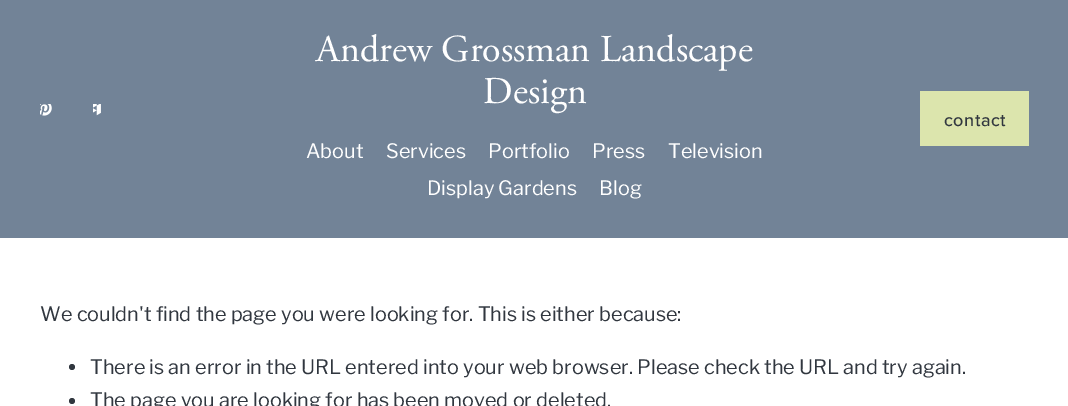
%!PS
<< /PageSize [1068 406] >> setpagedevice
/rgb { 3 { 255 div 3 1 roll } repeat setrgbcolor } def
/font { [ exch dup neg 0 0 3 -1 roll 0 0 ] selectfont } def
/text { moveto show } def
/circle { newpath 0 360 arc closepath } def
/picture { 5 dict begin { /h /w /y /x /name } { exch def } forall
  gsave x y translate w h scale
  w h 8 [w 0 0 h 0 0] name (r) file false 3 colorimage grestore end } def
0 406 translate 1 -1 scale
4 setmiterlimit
255 255 255 rgb
0 0 1068 406 rectfill
114 131 151 rgb
0 0 1068 238 rectfill
(img_01.rgb) 40 104 12 12 picture
(img_02.rgb) 93 104 8 12 picture
220 229 173 rgb
920 91 109 55 rectfill
49 55 63 rgb
72 367 3 circle fill
72 401 3 circle fill
/AdobeGaramond-Regular 38 font
255 255 255 rgb
(Andrew Grossman Landscape) 316 61 text
(Design) 483 103 text
/LibreFranklin-Regular 19.85 font
(About) 306 158 text
(Services) 386 158 text
(Portfolio) 488 158 text
(Press) 592 158 text
(Television) 668 158 text
(Display Gardens) 427 195 text
(Blog) 599 195 text
/ProximaNova-Medium 18 font
49 55 63 rgb
944 126 moveto 0.5 0 (contact) ashow
/LibreFranklin-Regular 19.85 font
(We couldn't find the page you were looking for. This is either because:) 40 321 text
(There is an error in the URL entered into your web browser. Please check the URL and try again.) 90 374 text
(The page you are looking for has been moved or deleted.) 90 407 text
showpage
